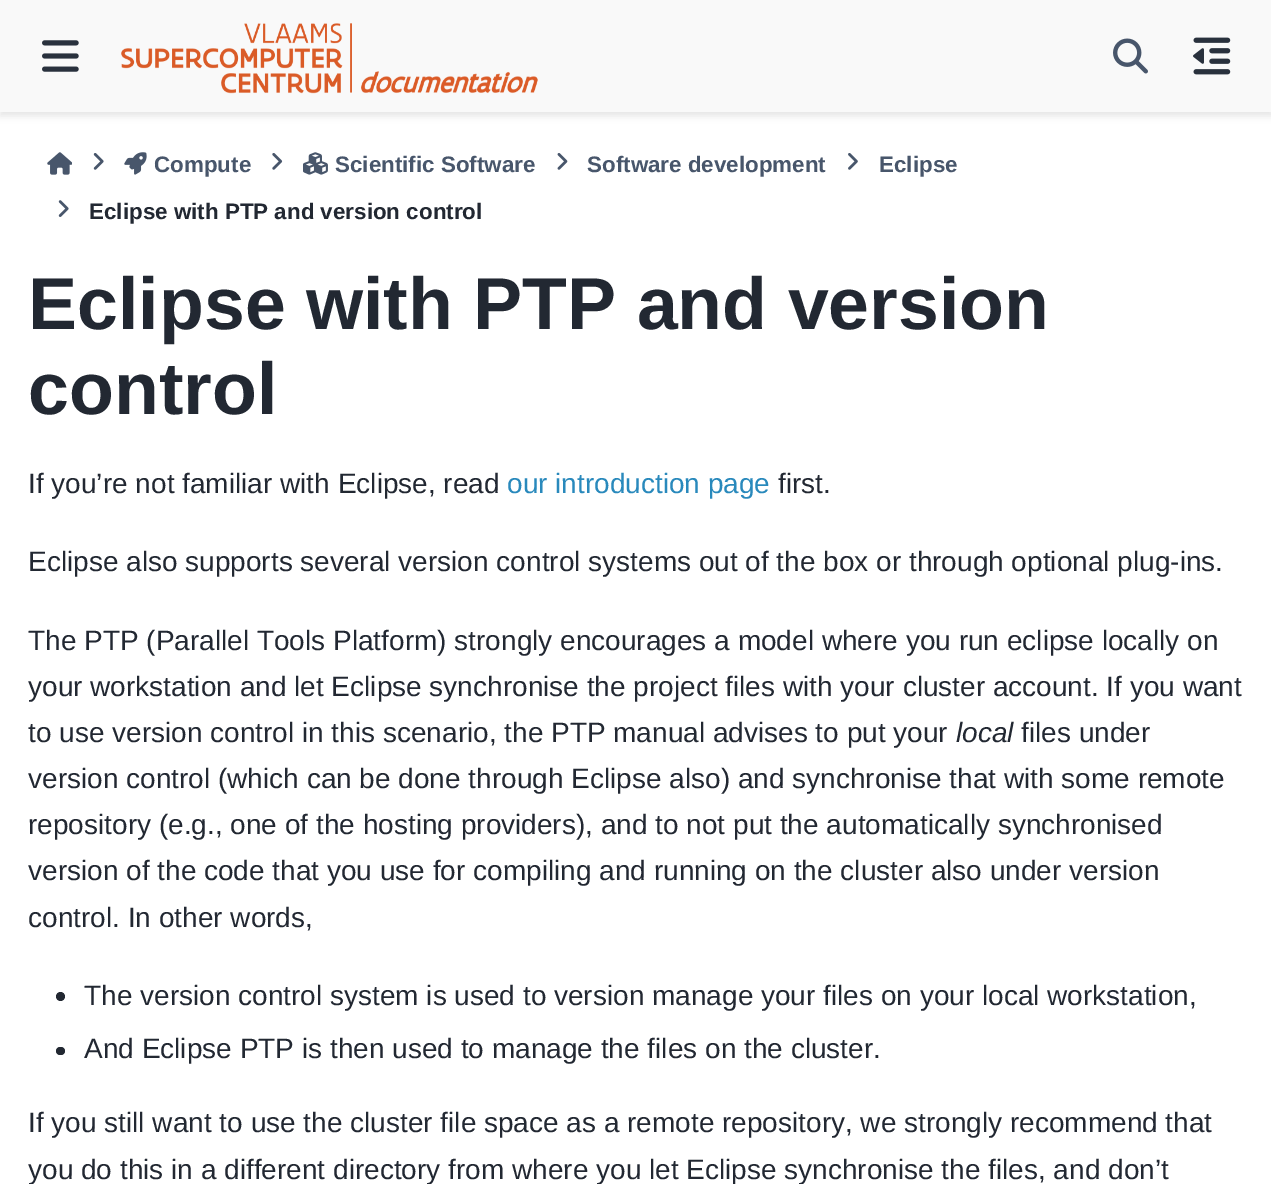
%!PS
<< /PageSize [1271 1184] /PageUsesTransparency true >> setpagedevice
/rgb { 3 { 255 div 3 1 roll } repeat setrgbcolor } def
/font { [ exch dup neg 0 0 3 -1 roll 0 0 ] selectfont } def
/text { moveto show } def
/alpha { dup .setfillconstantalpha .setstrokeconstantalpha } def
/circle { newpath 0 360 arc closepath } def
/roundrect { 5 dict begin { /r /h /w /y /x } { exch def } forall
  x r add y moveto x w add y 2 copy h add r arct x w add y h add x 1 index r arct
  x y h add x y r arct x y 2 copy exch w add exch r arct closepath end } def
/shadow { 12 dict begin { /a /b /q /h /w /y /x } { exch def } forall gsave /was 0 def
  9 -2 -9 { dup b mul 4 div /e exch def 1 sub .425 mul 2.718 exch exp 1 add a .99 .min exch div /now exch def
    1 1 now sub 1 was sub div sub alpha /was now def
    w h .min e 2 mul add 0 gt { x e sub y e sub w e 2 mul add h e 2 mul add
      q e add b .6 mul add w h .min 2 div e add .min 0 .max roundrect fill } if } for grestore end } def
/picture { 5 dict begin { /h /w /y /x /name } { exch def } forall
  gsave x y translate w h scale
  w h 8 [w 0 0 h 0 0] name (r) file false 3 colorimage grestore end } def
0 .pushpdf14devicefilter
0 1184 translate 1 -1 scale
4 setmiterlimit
255 255 255 rgb
0 0 1271 1184 rectfill
0 0 0 rgb
0 4 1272 112 0 3.5 0.1 shadow
249 249 249 rgb
0 0 1271 112 rectfill
(img_01.rgb) 42 40 37 32 picture
(img_02.rgb) 121 23 417 71 picture
(img_03.rgb) 1113 38 35 36 picture
(img_04.rgb) 1193 37 38 38 picture
(img_05.rgb) 47 152 25 23 picture
(img_06.rgb) 93 153 11 17 picture
(img_07.rgb) 124 152 23 23 picture
(img_08.rgb) 272 153 11 17 picture
(img_09.rgb) 303 152 25 23 picture
(img_10.rgb) 557 153 11 17 picture
(img_11.rgb) 848 153 10 17 picture
(img_12.rgb) 58 200 11 17 picture
34 40 50 rgb
60.5 996.5 4.5 circle fill
56 1047 9 8 4 roundrect fill
/LiberationSans-Bold 22.4 font
72 86 107 rgb
(Compute) 154 172 text
(Scientific Software) 335 172 text
(Software development) 587 172 text
(Eclipse) 879 172 text
34 40 50 rgb
(Eclipse with PTP and version control) 89 219 text
/LiberationSans-Bold 73.5 font
(Eclipse with PTP and version) 28 329 text
(control) 28 414 text
/LiberationSans-Regular 28 font
(If you’re not familiar with Eclipse, read) 28 493 text
41 137 188 rgb
(our introduction page) 507 493 text
34 40 50 rgb
(first.) 778 493 text
(Eclipse also supports several version control systems out of the box or through optional plug-ins.) 28 571 text
(The PTP \(Parallel Tools Platform\) strongly encourages a model where you run eclipse locally on) 28 650 text
(your workstation and let Eclipse synchronise the project files with your cluster account. If you want) 28 696 text
(to use version control in this scenario, the PTP manual advises to put your) 28 742 text
/LiberationSans-Italic 28 font
(local) 956 742 text
/LiberationSans-Regular 28 font
(files under) 1021 742 text
(version control \(which can be done through Eclipse also\) and synchronise that with some remote) 28 788 text
(repository \(e.g., one of the hosting providers\), and to not put the automatically synchronised) 28 834 text
(version of the code that you use for compiling and running on the cluster also under version) 28 880 text
(control. In other words,) 28 927 text
(The version control system is used to version manage your files on your local workstation,) 84 1005 text
(And Eclipse PTP is then used to manage the files on the cluster.) 84 1058 text
(If you still want to use the cluster file space as a remote repository, we strongly recommend that) 28 1132 text
(you do this in a different directory from where you let Eclipse synchronise the files, and don’t) 28 1179 text
.poppdf14devicefilter showpage
